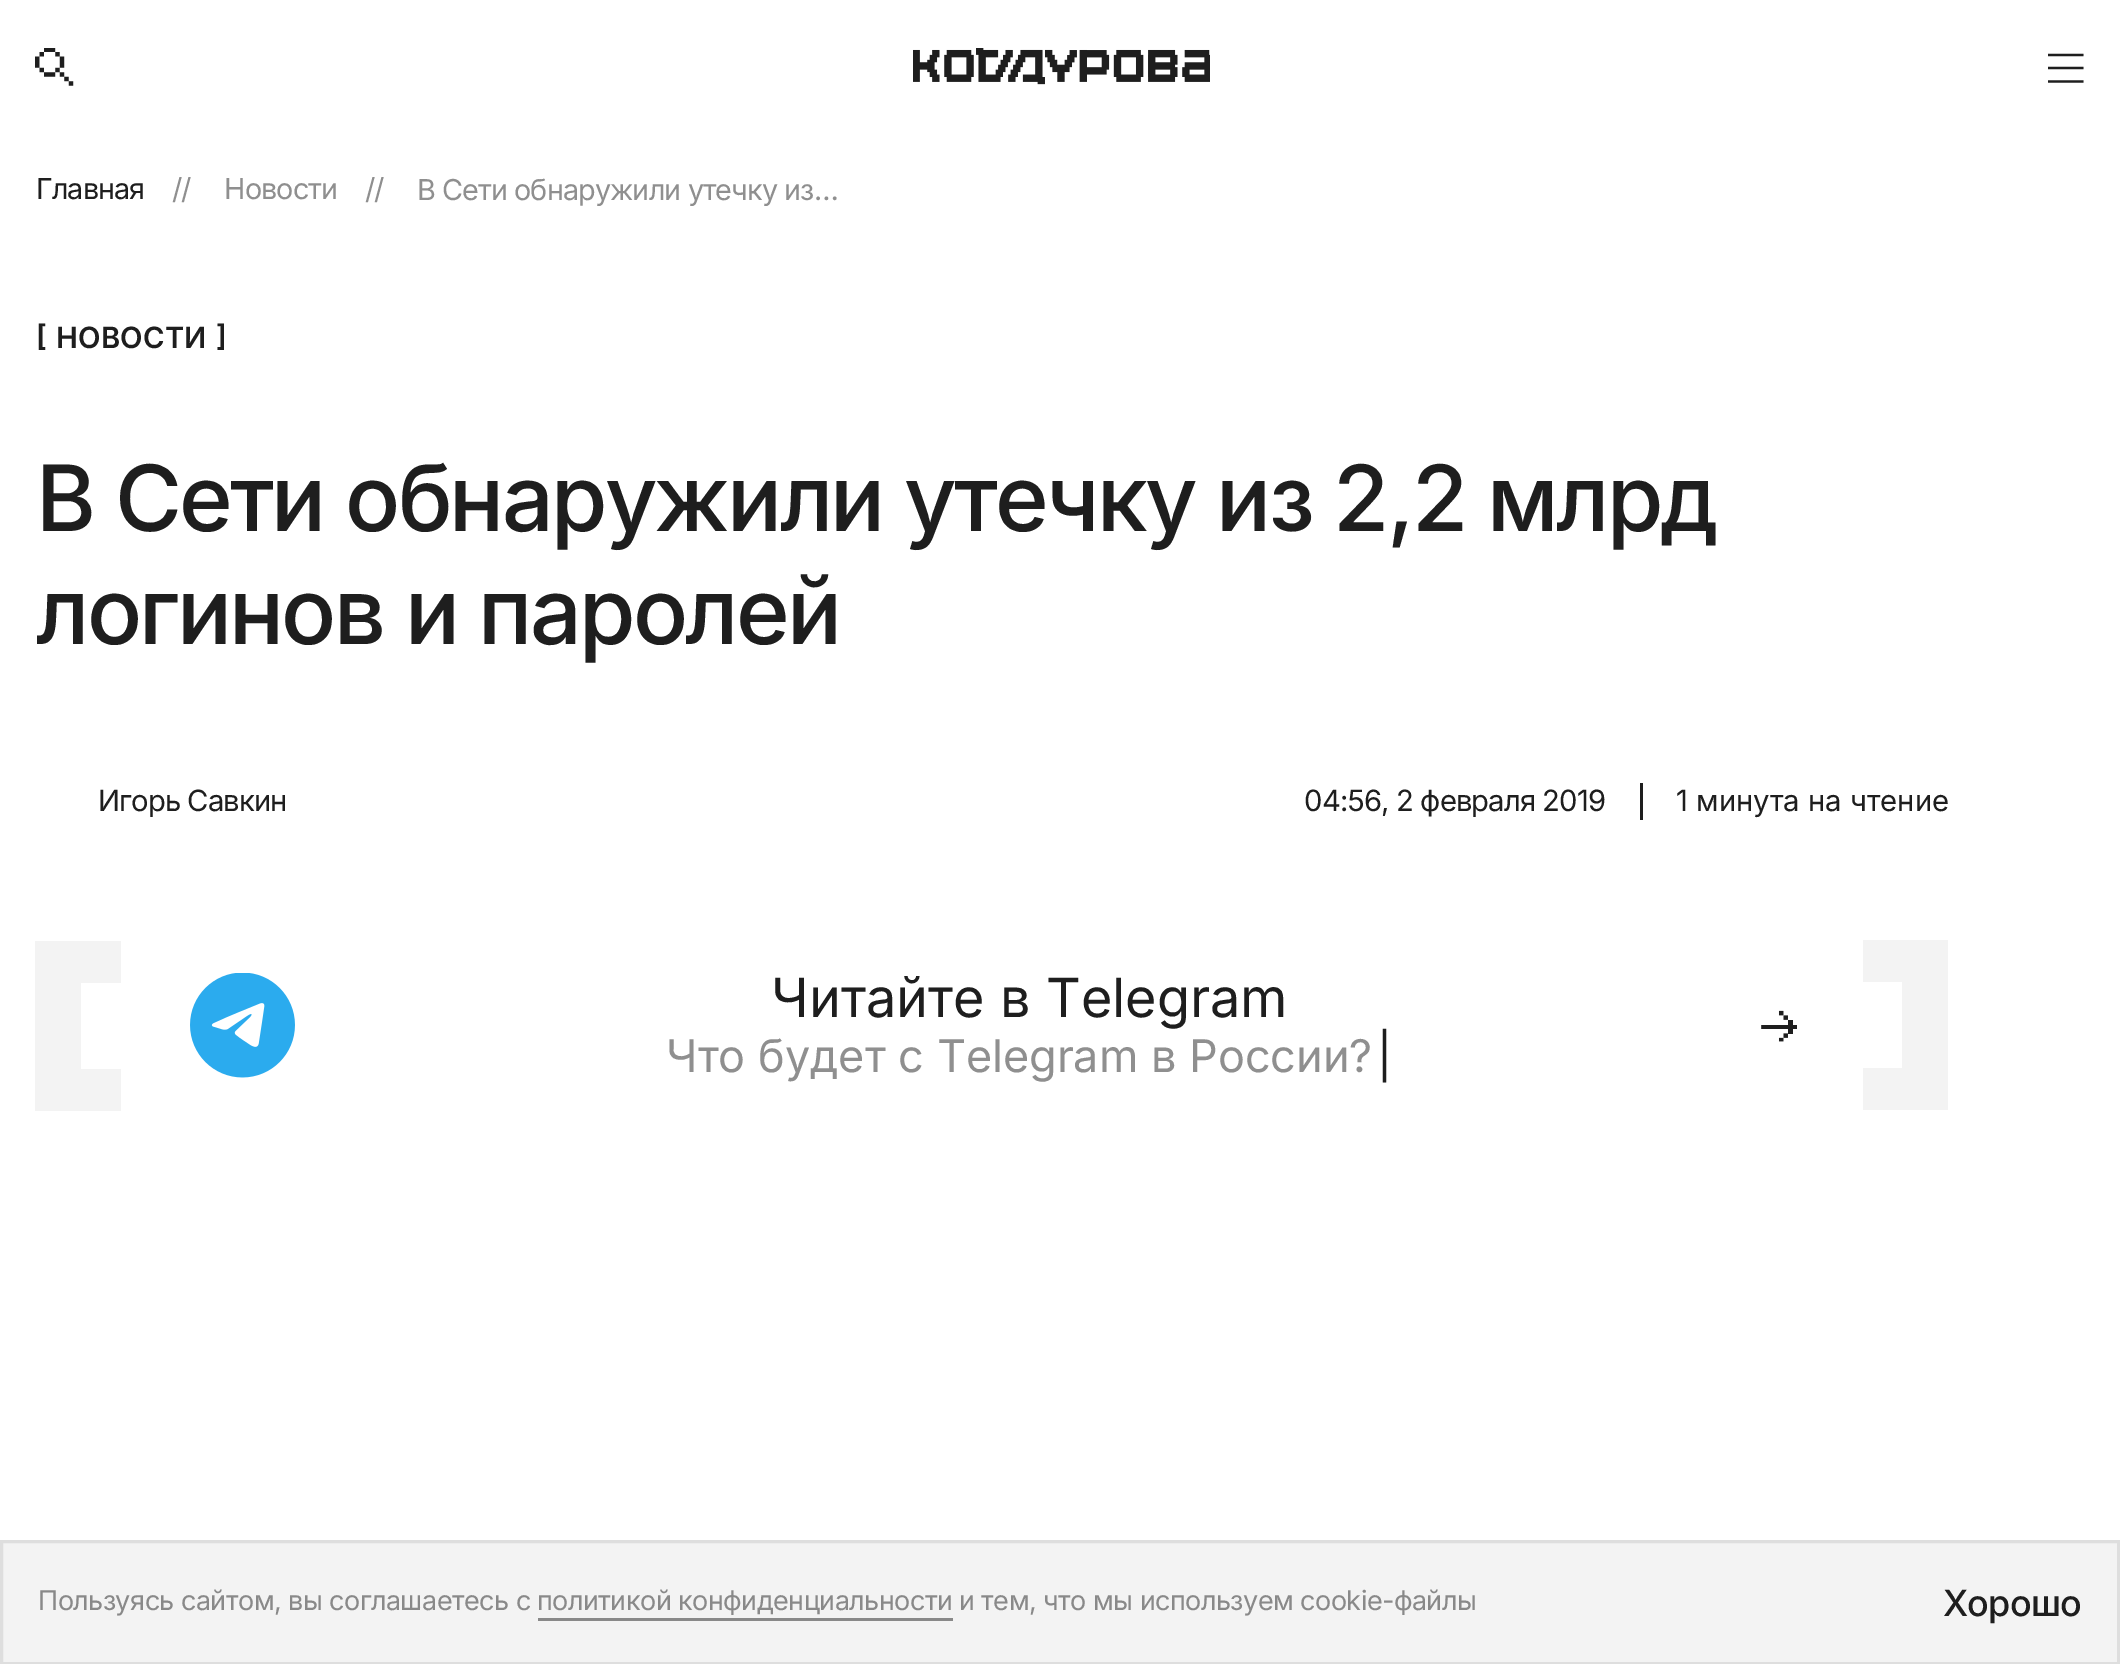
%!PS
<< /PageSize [2120 1664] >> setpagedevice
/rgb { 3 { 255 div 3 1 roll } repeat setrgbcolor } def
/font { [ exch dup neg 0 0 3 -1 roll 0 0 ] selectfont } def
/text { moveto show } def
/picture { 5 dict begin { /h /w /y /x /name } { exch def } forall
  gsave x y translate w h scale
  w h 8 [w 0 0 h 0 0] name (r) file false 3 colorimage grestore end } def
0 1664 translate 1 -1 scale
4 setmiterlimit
255 255 255 rgb
0 0 2120 1664 rectfill
(img_01.rgb) 35 48 39 38 picture
(img_02.rgb) 913 48 297 37 picture
gsave
2048 53 37 30 rectclip
30 30 30 rgb
2.2 setlinewidth
2047.5 55 moveto 36 0 rlineto 2047.5 68 moveto 36 0 rlineto 2047.5 81.5 moveto 36 0 rlineto stroke
grestore
30 30 30 rgb
1640 783 3 37 rectfill
243 243 243 rgb
121 961 moveto 0 22 rlineto -40 0 rlineto 0 86 rlineto 40 0 rlineto 0 42 rlineto -86 0 rlineto 0 -170 rlineto 86 0 rlineto 0 20 rlineto fill
(img_03.rgb) 190 973 105 105 picture
(img_04.rgb) 1761 1010 36 32 picture
gsave
1863 925 85 203 rectclip
1862 1090 moveto 0 -22 rlineto 40 0 rlineto 0 -86 rlineto -40 0 rlineto 0 -42 rlineto 86 0 rlineto 0 170 rlineto -86 0 rlineto 0 -20 rlineto fill
grestore
1.5 1541.5 moveto 2117 0 rlineto 0 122 rlineto -2117 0 rlineto closepath gsave fill grestore
222 222 222 rgb
3 setlinewidth
stroke
137 137 137 rgb
538 1618 415 3 rectfill
/Inter-Regular 28.8 font
30 30 30 rgb
36 199 moveto -0.9 0 (Главная) ashow
143 143 143 rgb
172 199 moveto -0.9 0 (//) ashow
224 199 moveto -0.9 0 (Новости) ashow
365 199 moveto -0.9 0 (//) ashow
417 200 moveto -0.9 0 (В Сети обнаружили утечку из…) ashow
/Inter-SemiBold 29.25 font
30 30 30 rgb
36 346 moveto 0.25 0 ([) ashow
56 348 moveto 0.25 0 (НОВОСТИ) ashow
216 346 moveto 0.25 0 (]) ashow
/Inter-Medium 91.4 font
36 531 moveto -2.75 0 (В Сети обнаружили утечку из 2,2 млрд) ashow
36 644 moveto -2.75 0 (логинов и паролей) ashow
/Inter-Regular 29.25 font
98 811 moveto -0.9 0 (Игорь Савкин) ashow
1304 811 moveto -0.9 0 (04:56, 2 февраля 2019) ashow
(1 минута на чтение) 1676 811 text
/Inter-Regular 54 font
(Читайте в Telegram) 771 1017 text
/Inter-Regular 45 font
143 143 143 rgb
(Что будет с Telegram в России?) 666 1072 text
30 30 30 rgb
(|) 1377 1072 text
/Inter-Regular 27 font
137 137 137 rgb
38 1610 moveto -0.55 0 (Пользуясь сайтом, вы соглашаетесь с) ashow
537 1610 moveto -0.55 0 (политикой конфиденциальности) ashow
959 1610 moveto -0.55 0 (и тем, что мы используем cookie-файлы) ashow
/Inter-Medium 36 font
30 30 30 rgb
1943 1616 moveto -0.75 0 (Хорошо) ashow
showpage
